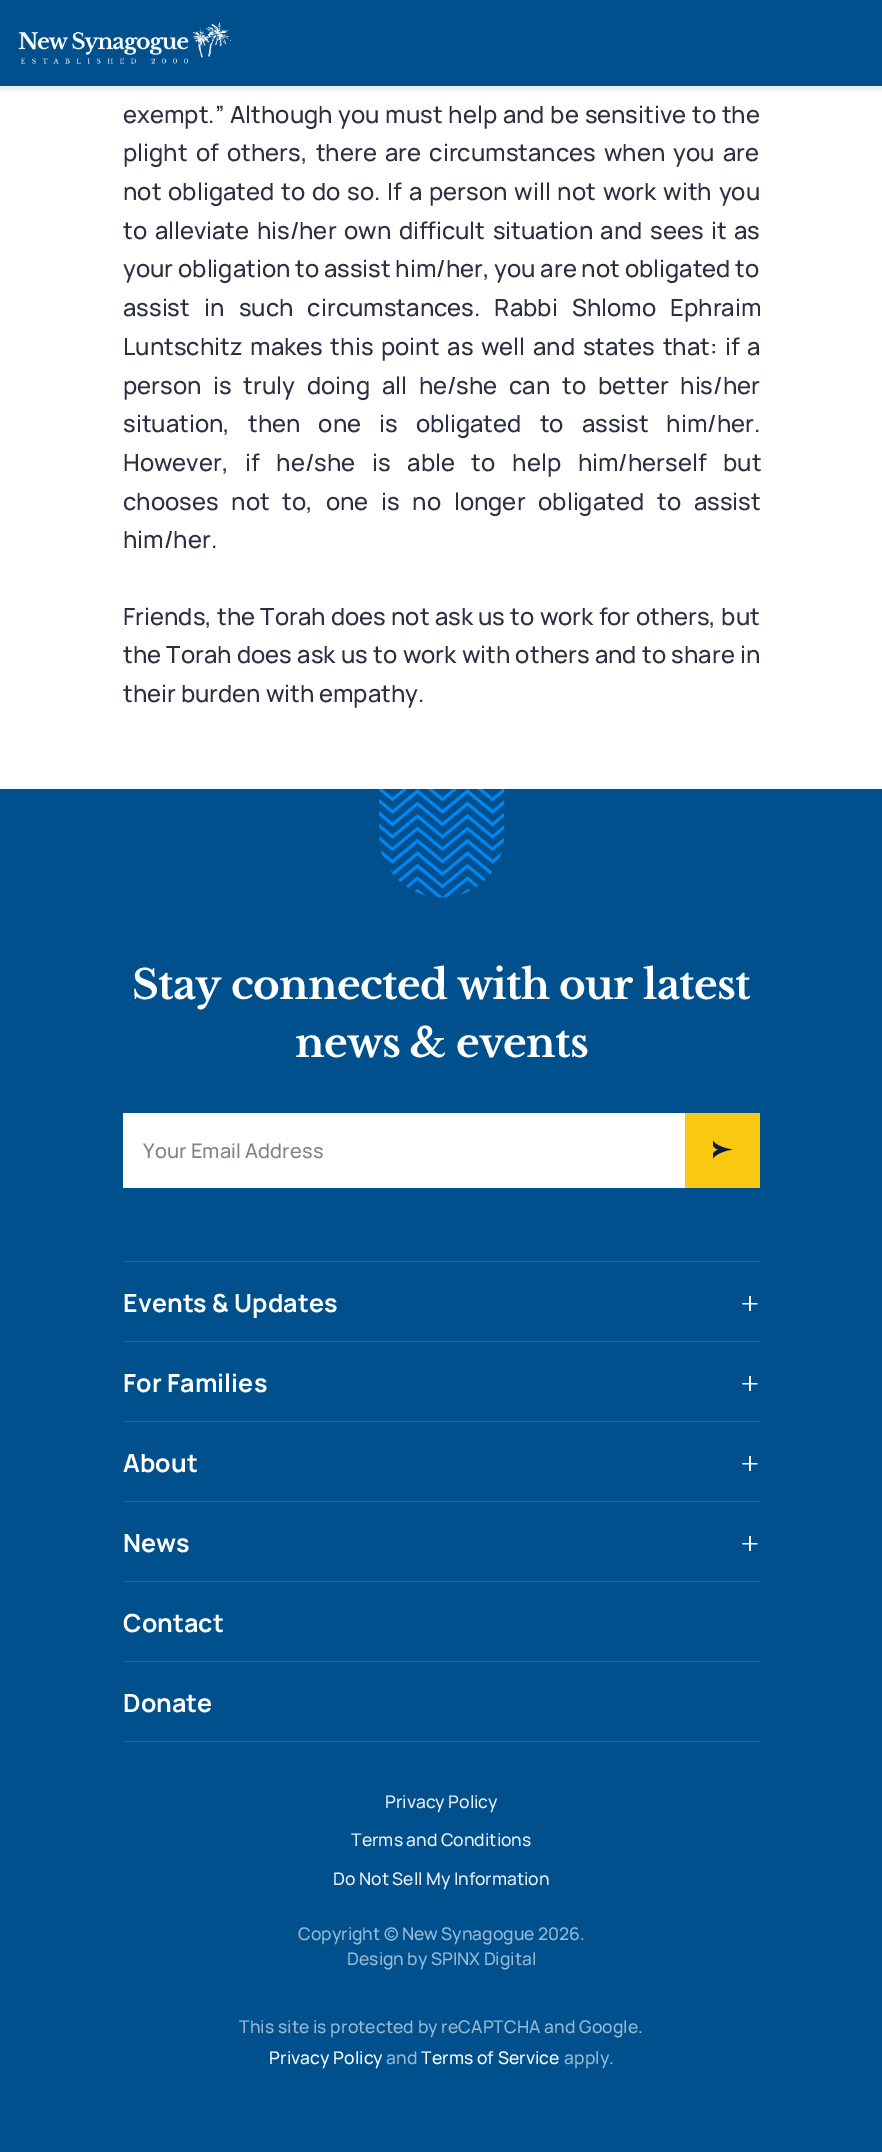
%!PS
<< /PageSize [882 2152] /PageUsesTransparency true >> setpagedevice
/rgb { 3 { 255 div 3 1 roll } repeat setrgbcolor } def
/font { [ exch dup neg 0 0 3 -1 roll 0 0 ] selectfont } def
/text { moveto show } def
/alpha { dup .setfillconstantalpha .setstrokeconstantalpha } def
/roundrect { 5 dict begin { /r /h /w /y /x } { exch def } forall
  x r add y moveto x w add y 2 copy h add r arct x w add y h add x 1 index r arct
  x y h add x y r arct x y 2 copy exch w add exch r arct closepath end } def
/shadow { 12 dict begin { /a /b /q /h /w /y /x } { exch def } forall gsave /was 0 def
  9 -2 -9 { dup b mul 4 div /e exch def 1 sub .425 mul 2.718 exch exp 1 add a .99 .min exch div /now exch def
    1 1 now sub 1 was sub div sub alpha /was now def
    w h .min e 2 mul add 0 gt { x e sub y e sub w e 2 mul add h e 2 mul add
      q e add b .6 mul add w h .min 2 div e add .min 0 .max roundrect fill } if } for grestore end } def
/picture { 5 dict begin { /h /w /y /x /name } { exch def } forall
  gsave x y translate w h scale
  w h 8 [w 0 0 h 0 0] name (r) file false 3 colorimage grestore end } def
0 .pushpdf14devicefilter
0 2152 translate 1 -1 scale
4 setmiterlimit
255 255 255 rgb
0 0 882 2152 rectfill
0 19 47 rgb
0 3 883 86 0 3 0.1 shadow
0 80 142 rgb
0 0 882 86 rectfill
(img_01.rgb) 18 22 214 42 picture
0 789 882 1363 rectfill
(img_02.rgb) 379 789 126 109 picture
255 255 255 rgb
123 1113 562 75 rectfill
250 199 17 rgb
685 1113 75 75 rectfill
gsave
713 1140 20 20 rectclip
17 26 63 rgb
718.5 1149.5 moveto -4 -1 -7 -4 -6 -9.5 rcurveto 3.5 6 13.5 8.5 20 9.5 rcurveto -6.5 1 -16.5 4 -20 9.5 rcurveto -1 -5.5 2 -8 6 -9.5 rcurveto eofill
grestore
31 101 156 rgb
123 1261 637 1 rectfill
255 255 255 rgb
751 1296 moveto 0 7 rlineto 6.5 0 rlineto 0 1.5 rlineto -6.5 0 rlineto 0 6.5 rlineto -2 0 rlineto 0 -6.5 rlineto -6.5 0 rlineto 0 -1.5 rlineto 6.5 0 rlineto 0 -7 rlineto closepath eofill
31 101 156 rgb
123 1341 637 1 rectfill
255 255 255 rgb
751 1376 moveto 0 7 rlineto 6.5 0 rlineto 0 1.5 rlineto -6.5 0 rlineto 0 6.5 rlineto -2 0 rlineto 0 -6.5 rlineto -6.5 0 rlineto 0 -1.5 rlineto 6.5 0 rlineto 0 -7 rlineto closepath eofill
31 101 156 rgb
123 1421 637 1 rectfill
255 255 255 rgb
751 1456 moveto 0 7 rlineto 6.5 0 rlineto 0 1.5 rlineto -6.5 0 rlineto 0 6.5 rlineto -2 0 rlineto 0 -6.5 rlineto -6.5 0 rlineto 0 -1.5 rlineto 6.5 0 rlineto 0 -7 rlineto closepath eofill
31 101 156 rgb
123 1501 637 1 rectfill
255 255 255 rgb
751 1536 moveto 0 7 rlineto 6.5 0 rlineto 0 1.5 rlineto -6.5 0 rlineto 0 6.5 rlineto -2 0 rlineto 0 -6.5 rlineto -6.5 0 rlineto 0 -1.5 rlineto 6.5 0 rlineto 0 -7 rlineto closepath eofill
31 101 156 rgb
123 1581 637 1 rectfill
123 1661 637 1 rectfill
123 1741 637 1 rectfill
/Manrope-Medium 23.75 font
43 47 65 rgb
123 123 moveto 1 0 32 (exempt.” Although you must help and be sensitive to the) widthshow
123 161 moveto 3.5 0 32 (plight of others, there are circumstances when you are) widthshow
123 200 moveto 2.1 0 32 (not obligated to do so. If a person will not work with you) widthshow
123 239 moveto 2.75 0 32 (to alleviate his/her own difficult situation and sees it as) widthshow
(your obligation to assist him/her, you are not obligated to) 123 277 text
123 316 moveto 9.5 0 32 (assist in such circumstances. Rabbi Shlomo Ephraim) widthshow
123 355 moveto 3 0 32 (Luntschitz makes this point as well and states that: if a) widthshow
123 394 moveto 7 0 32 (person is truly doing all he/she can to better his/her) widthshow
123 432 moveto 13.25 0 32 (situation, then one is obligated to assist him/her.) widthshow
123 471 moveto 12 0 32 (However, if he/she is able to help him/herself but) widthshow
123 510 moveto 8 0 32 (chooses not to, one is no longer obligated to assist) widthshow
(him/her.) 123 548 text
123 625 moveto 0.5 0 32 (Friends, the Torah does not ask us to work for others, but) widthshow
123 663 moveto 0.6 0 32 (the Torah does ask us to work with others and to share in) widthshow
(their burden with empathy.) 123 702 text
/LibreBaskerville-Bold 40.5 font
255 255 255 rgb
132 999 moveto -0.7 0 (Stay connected with our latest) ashow
295 1057 moveto -0.7 0 (news & events) ashow
/Manrope-Medium 20 font
128 130 141 rgb
143 1158 moveto 0.1 0 (Your Email Address) ashow
/Manrope-Bold 25 font
255 255 255 rgb
123 1312 moveto 0.1 0 (Events & Updates) ashow
123 1392 moveto 0.1 0 (For Families) ashow
123 1472 moveto 0.1 0 (About) ashow
123 1552 moveto 0.1 0 (News) ashow
123 1632 moveto 0.1 0 (Contact) ashow
123 1712 moveto 0.1 0 (Donate) ashow
/Manrope-Medium 17.5 font
235 241 246 rgb
(Privacy Policy) 385 1808 text
(Terms and Conditions) 351 1846 text
(Do Not Sell My Information) 333 1885 text
153 185 210 rgb
(Copyright © New Synagogue 2026.) 298 1940 text
(Design by SPINX Digital) 347 1965 text
239 2033 moveto 0.1 0 (This site is protected by reCAPTCHA and Google.) ashow
255 255 255 rgb
269 2064 moveto 0.1 0 (Privacy Policy) ashow
153 185 210 rgb
386 2064 moveto 0.1 0 (and) ashow
255 255 255 rgb
421 2064 moveto 0.1 0 (Terms of Service) ashow
153 185 210 rgb
564 2064 moveto 0.1 0 (apply.) ashow
.poppdf14devicefilter showpage
